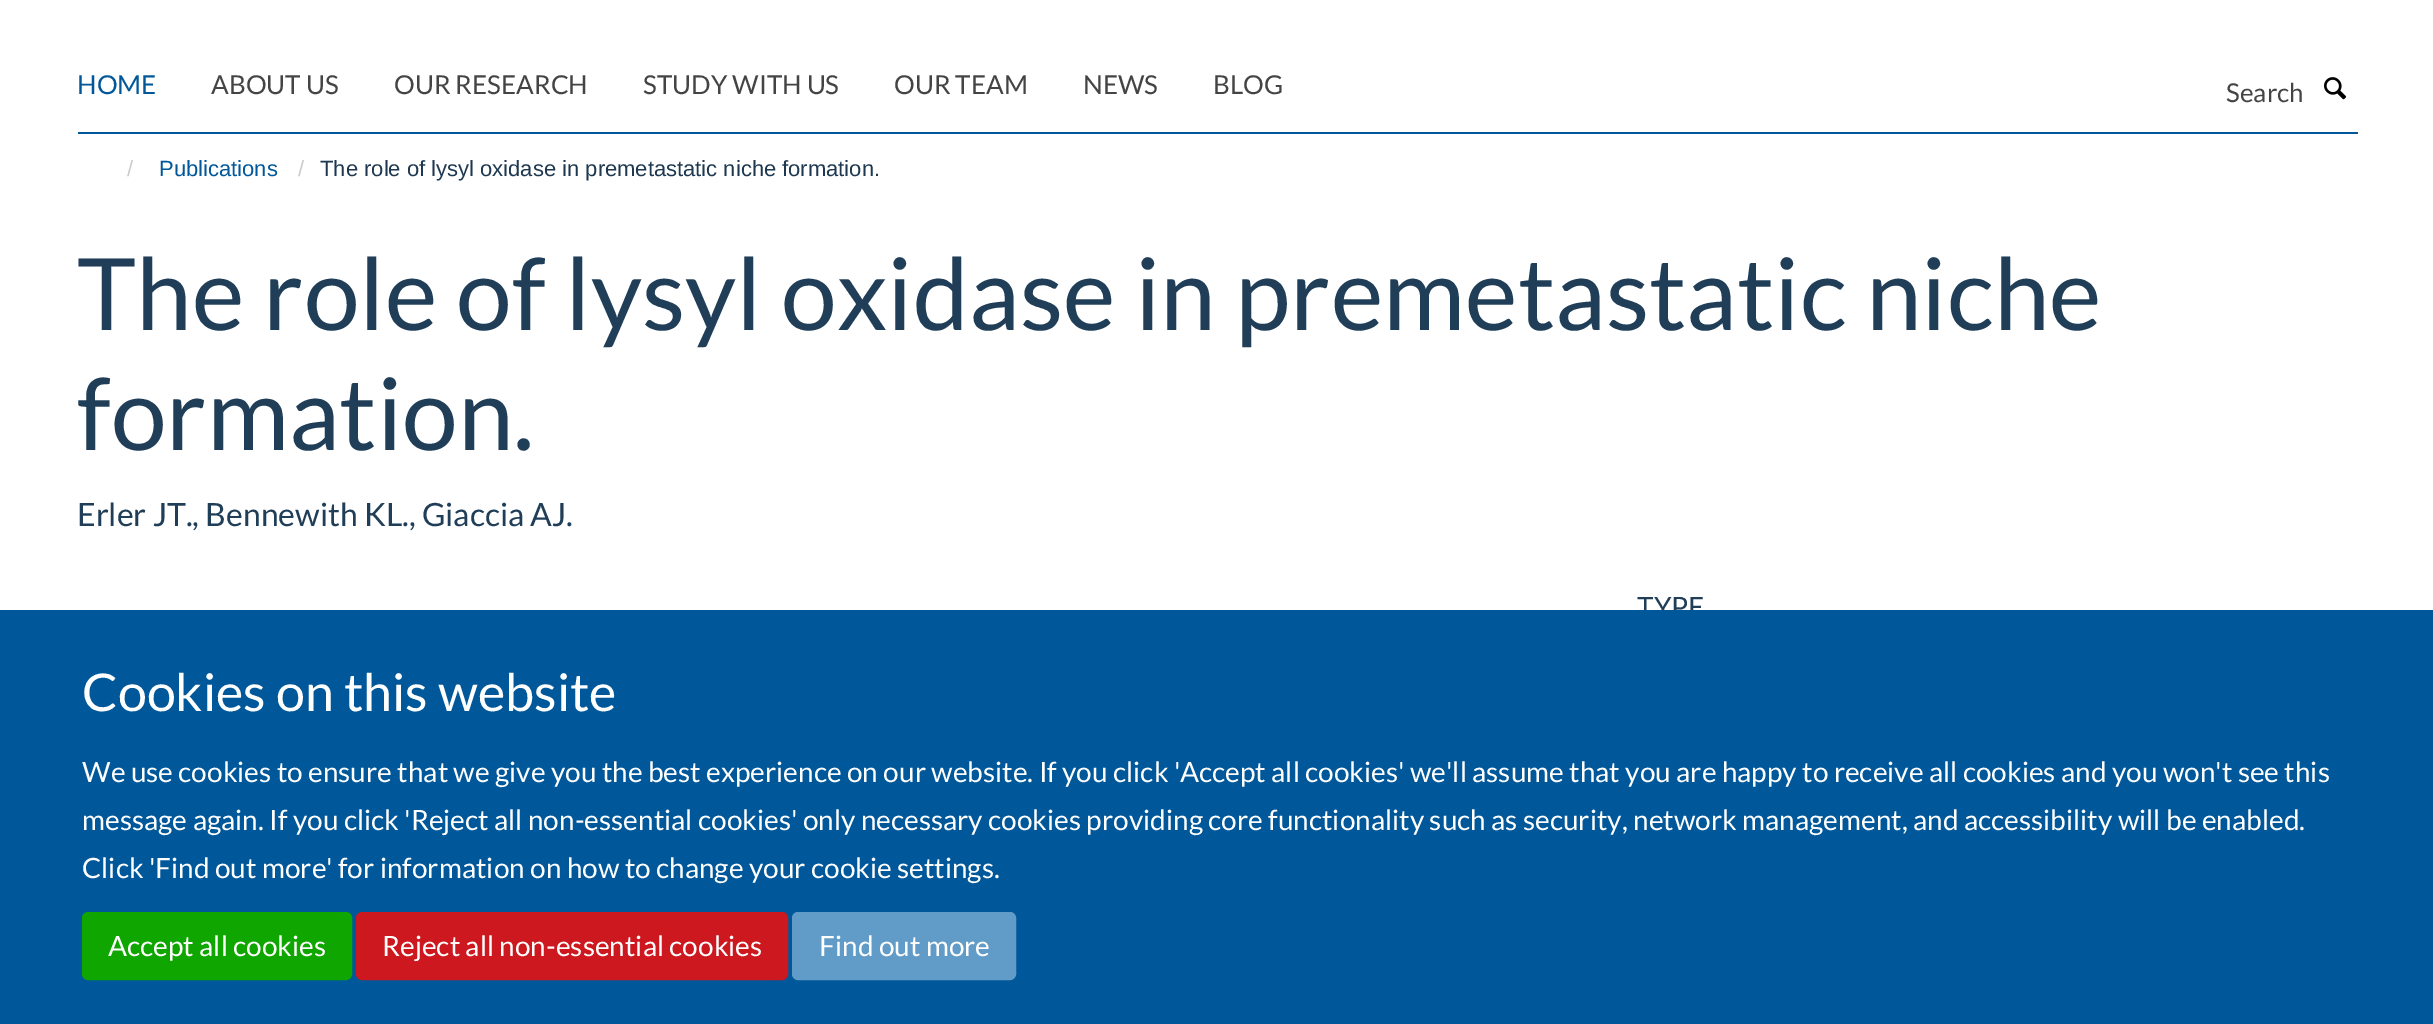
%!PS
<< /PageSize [2433 1024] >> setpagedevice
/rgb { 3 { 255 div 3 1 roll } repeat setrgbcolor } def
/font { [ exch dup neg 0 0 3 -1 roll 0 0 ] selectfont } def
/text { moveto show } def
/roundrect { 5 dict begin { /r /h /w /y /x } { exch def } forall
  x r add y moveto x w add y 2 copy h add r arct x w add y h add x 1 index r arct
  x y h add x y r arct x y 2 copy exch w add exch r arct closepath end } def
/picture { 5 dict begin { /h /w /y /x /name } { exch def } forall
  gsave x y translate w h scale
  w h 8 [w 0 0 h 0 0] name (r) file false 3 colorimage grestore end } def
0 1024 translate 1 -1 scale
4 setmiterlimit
255 255 255 rgb
0 0 2433 1024 rectfill
0 88 155 rgb
78 132 2280 2 rectfill
(img_01.rgb) 2324 77 23 23 picture
/Lato-Regular 26 font
(HOME) 77 94 text
68 68 68 rgb
(ABOUT US) 211 94 text
(OUR RESEARCH) 394 94 text
(STUDY WITH US) 643 94 text
(OUR TEAM) 894 94 text
(NEWS) 1083 94 text
(BLOG) 1213 94 text
(Search) 2226 102 text
/LiberationSans-Regular 22 font
204 204 204 rgb
(/) 127 176 text
0 88 155 rgb
(Publications) 159 176 text
204 204 204 rgb
(/) 298 176 text
29 56 80 rgb
(The role of lysyl oxidase in premetastatic niche formation.) 320 176 text
/Lato-Regular 100 font
32 62 88 rgb
(The role of lysyl oxidase in premetastatic niche) 77 330 text
(formation.) 77 450 text
/Lato-Regular 32 font
(Erler JT., Bennewith KL., Giaccia AJ.) 77 526 text
/Lato-Regular 28 font
(TYPE) 1637 617 text
0 88 155 rgb
0 610 2433 414 rectfill
/Lato-Regular 52 font
255 255 255 rgb
(Cookies on this website) 82 711 text
/Lato-Regular 28 font
(We use cookies to ensure that we give you the best experience on our website. If you click 'Accept all cookies' we'll assume that you are happy to receive all cookies and you won't see this) 82 782 text
(message again. If you click 'Reject all non-essential cookies' only necessary cookies providing core functionality such as security, network management, and accessibility will be enabled.) 82 830 text
(Click 'Find out more' for information on how to change your cookie settings.) 82 878 text
15 166 0 rgb
83 913 268 66 5 roundrect gsave fill grestore
2 setlinewidth
stroke
255 255 255 rgb
(Accept all cookies) 108 956 text
204 24 30 rgb
357 913 430 66 5 roundrect gsave fill grestore
stroke
255 255 255 rgb
(Reject all non-essential cookies) 382 956 text
97 155 199 rgb
793 913 222 66 5 roundrect gsave fill grestore
stroke
255 255 255 rgb
(Find out more) 819 956 text
showpage
